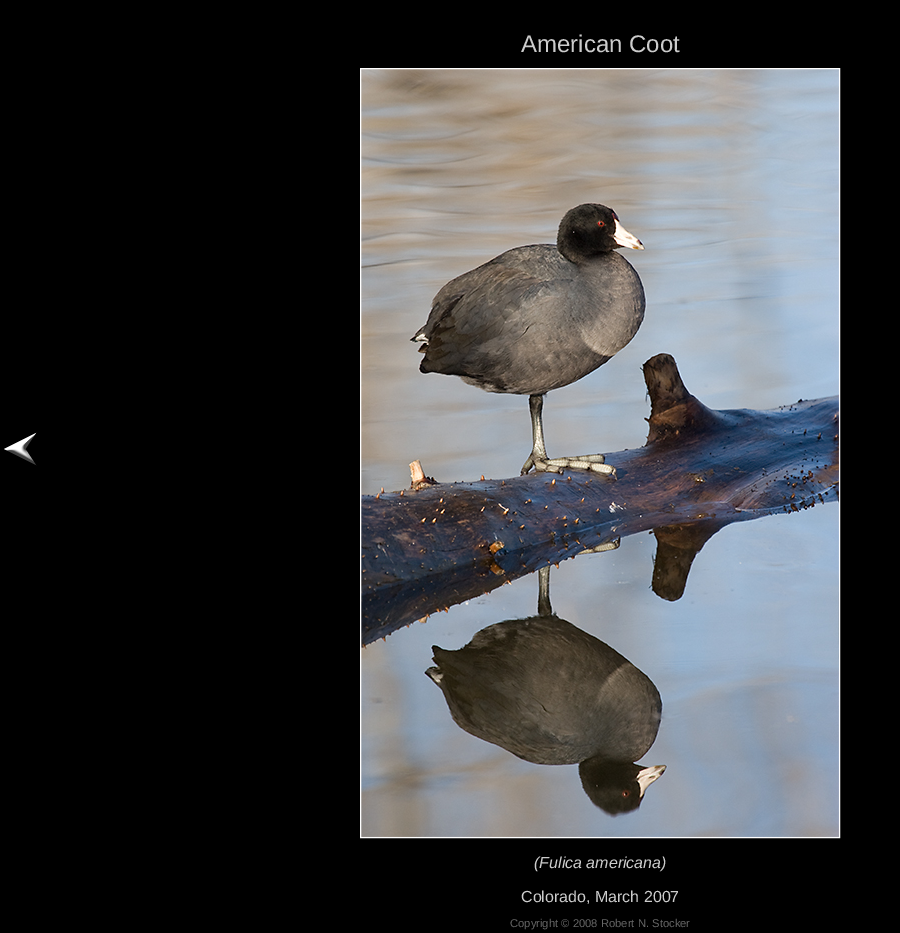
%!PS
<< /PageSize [900 933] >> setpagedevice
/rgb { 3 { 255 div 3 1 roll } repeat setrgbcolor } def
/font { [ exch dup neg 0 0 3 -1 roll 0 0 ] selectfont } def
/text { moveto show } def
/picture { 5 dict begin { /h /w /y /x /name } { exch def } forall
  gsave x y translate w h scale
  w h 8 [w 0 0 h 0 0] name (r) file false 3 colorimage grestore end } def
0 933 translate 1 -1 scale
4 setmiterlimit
0 0 0 rgb
0 0 900 933 rectfill
(img_01.rgb) 4 432 33 34 picture
(img_02.rgb) 361 69 478 768 picture
255 255 255 rgb
360.5 68.5 479 769 rectstroke
/LiberationSans-Regular 24 font
204 204 204 rgb
(American Coot) 521 52 text
/LiberationSans-Italic 16 font
(\(Fulica americana\)) 534 868 text
/LiberationSans-Regular 16 font
(Colorado, March 2007) 521 902 text
/LiberationSans-Regular 11.25 font
102 102 102 rgb
(Copyright © 2008 Robert N. Stocker) 510 927 text
showpage
